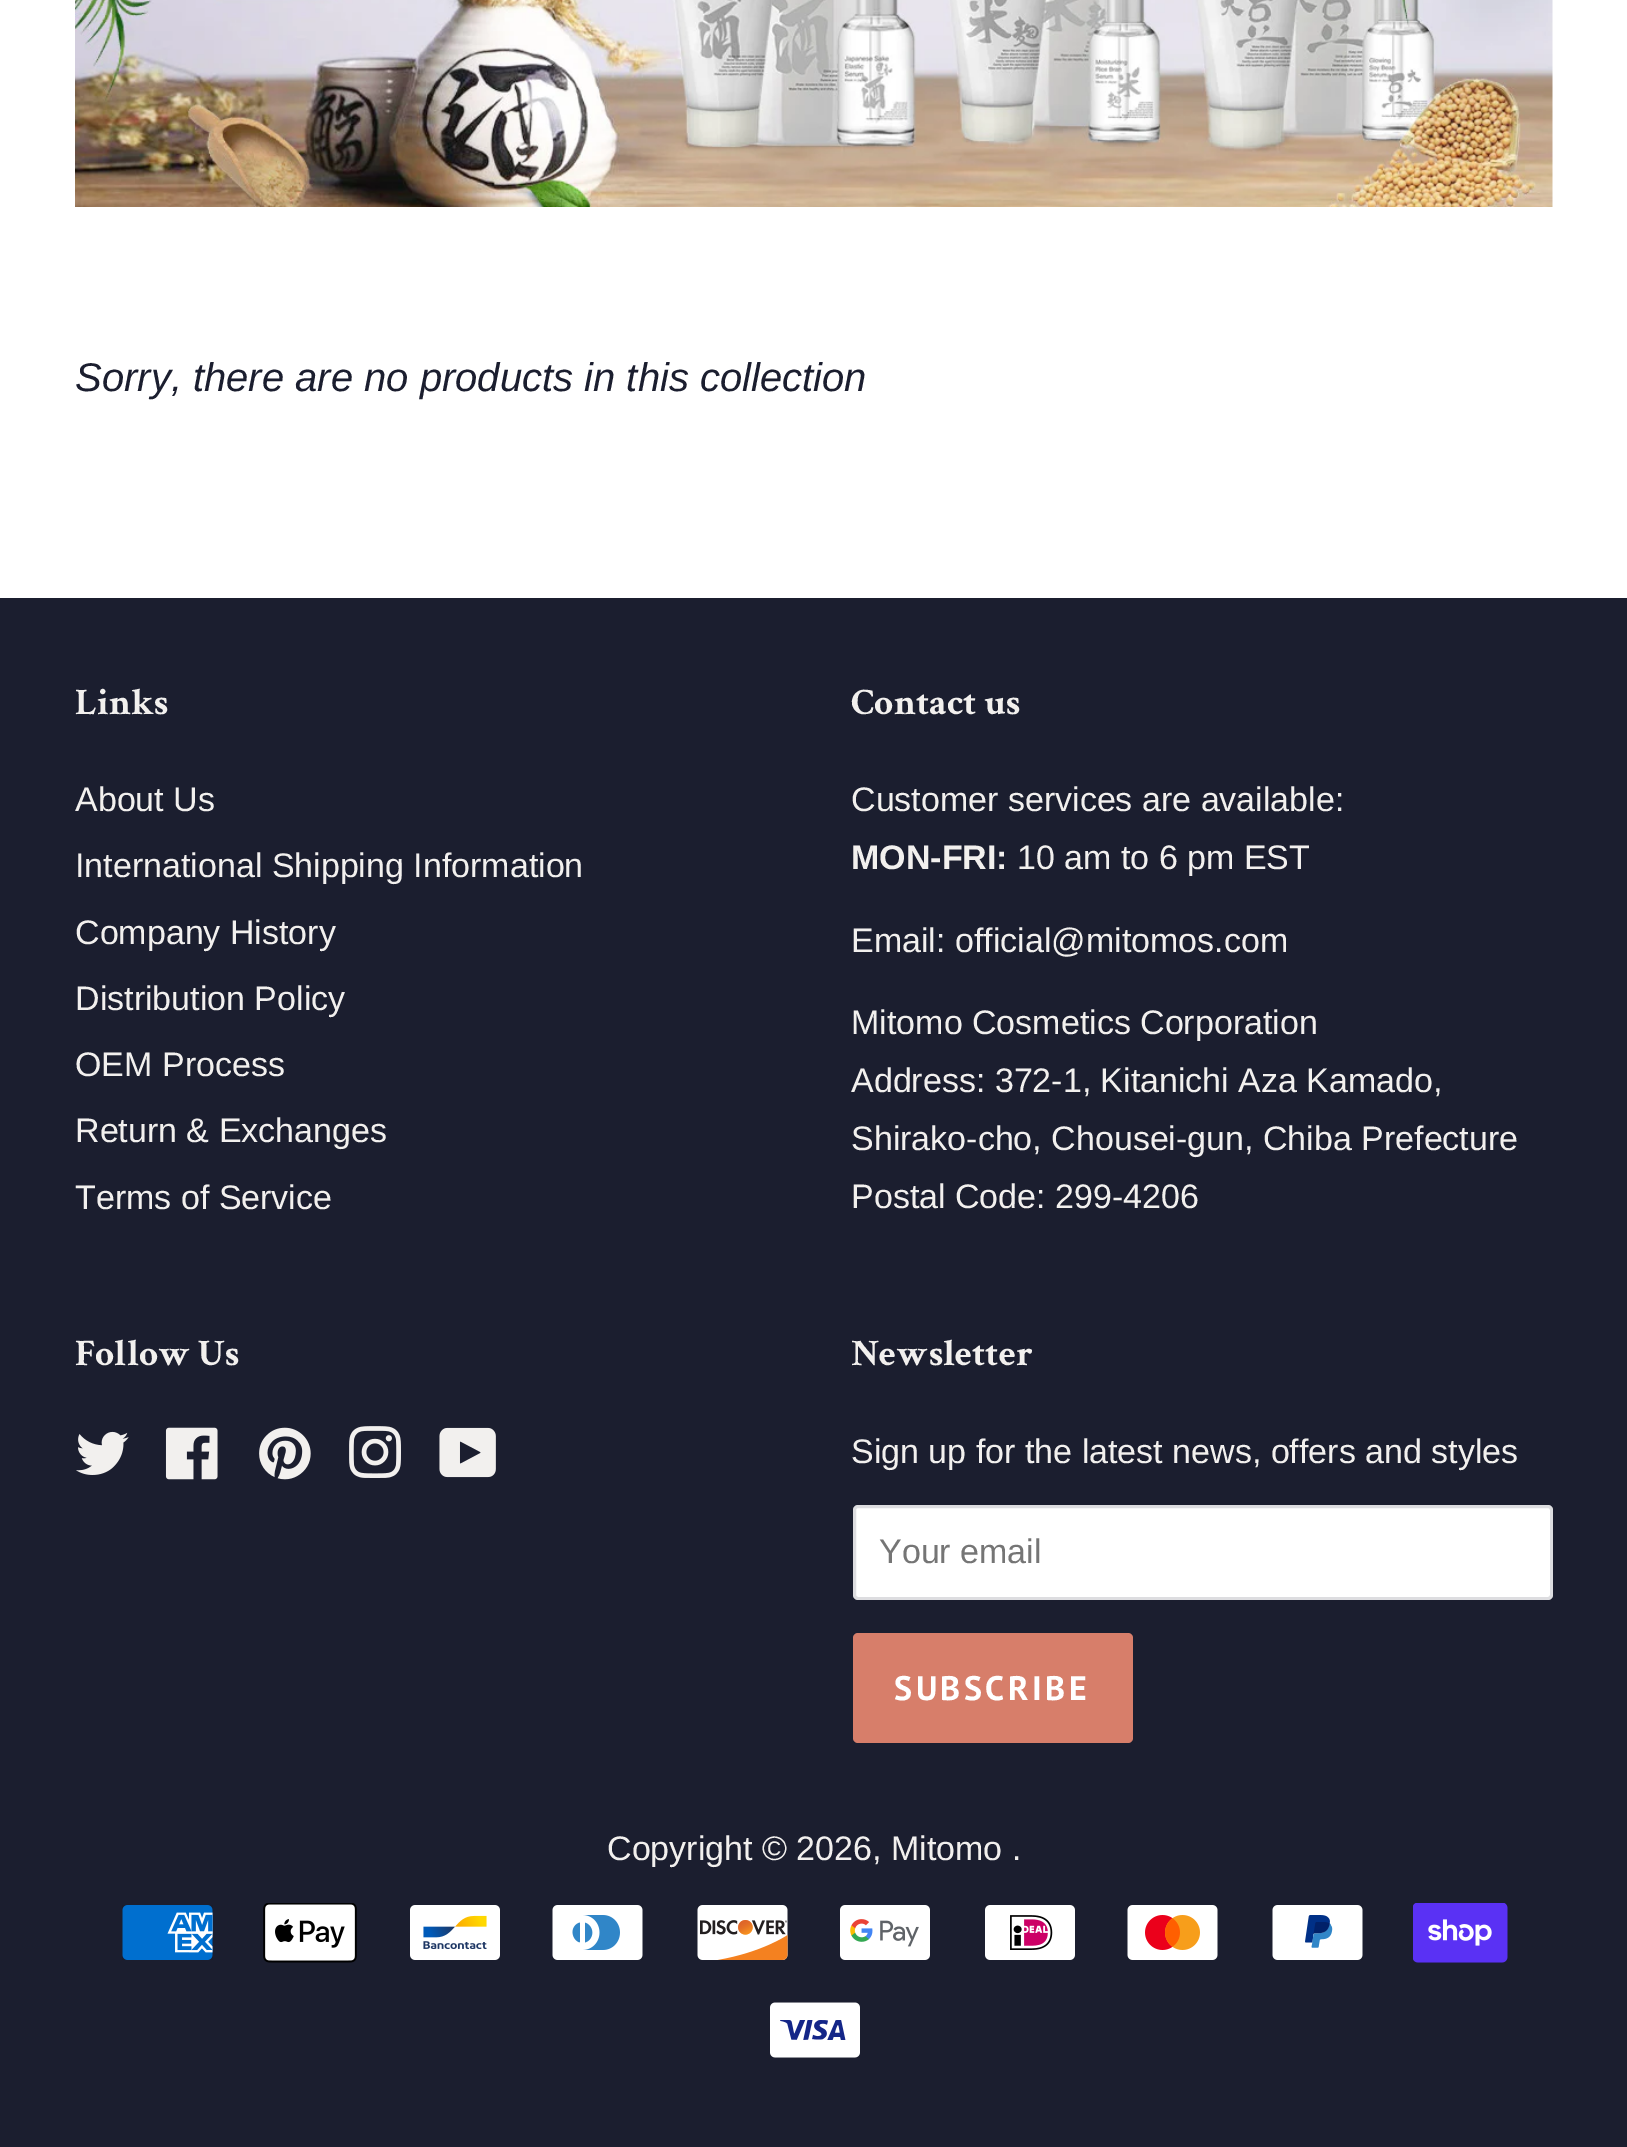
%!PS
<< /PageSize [1627 2147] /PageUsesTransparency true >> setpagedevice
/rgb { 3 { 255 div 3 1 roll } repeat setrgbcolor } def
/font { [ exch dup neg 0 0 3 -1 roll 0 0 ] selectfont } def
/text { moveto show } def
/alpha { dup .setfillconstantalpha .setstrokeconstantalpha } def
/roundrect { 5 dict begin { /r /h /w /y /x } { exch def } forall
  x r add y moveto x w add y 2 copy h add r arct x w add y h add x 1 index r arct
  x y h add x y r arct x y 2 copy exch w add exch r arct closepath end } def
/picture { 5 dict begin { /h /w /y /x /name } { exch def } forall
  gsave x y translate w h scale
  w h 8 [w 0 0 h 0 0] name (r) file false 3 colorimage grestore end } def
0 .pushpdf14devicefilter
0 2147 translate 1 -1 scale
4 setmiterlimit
255 255 255 rgb
0 0 1627 2147 rectfill
(img_01.rgb) 75 0 1478 207 picture
27 30 47 rgb
0 598 1627 1549 rectfill
(img_02.rgb) 76 1431 53 44 picture
(img_03.rgb) 165 1427 53 53 picture
(img_04.rgb) 259 1427 52 53 picture
(img_05.rgb) 349 1426 52 52 picture
(img_06.rgb) 439 1427 57 51 picture
255 255 255 rgb
853 1505 700 95 5 roundrect fill
0.15 alpha
27 30 47 rgb
3 setlinewidth
854.5 1506.5 697 92 3.5 roundrect stroke
1 alpha
215 126 106 rgb
853 1633 280 110 5 roundrect fill
(img_07.rgb) 122 1905 91 55 picture
(img_08.rgb) 263 1903 94 60 picture
(img_09.rgb) 410 1905 90 55 picture
(img_10.rgb) 552 1905 91 55 picture
(img_11.rgb) 697 1905 91 55 picture
(img_12.rgb) 840 1905 90 55 picture
(img_13.rgb) 985 1905 90 55 picture
(img_14.rgb) 1127 1905 91 55 picture
(img_15.rgb) 1272 1905 91 55 picture
(img_16.rgb) 1413 1903 95 60 picture
(img_17.rgb) 770 2002 90 56 picture
/LiberationSans-Italic 40 font
27 30 47 rgb
(Sorry, there are no products in this collection) 75 391 text
/CrimsonText-Bold 37.5 font
242 240 238 rgb
(Links) 75 714 text
/LiberationSans-Regular 34 font
(About Us) 75 811 text
(International Shipping Information) 75 877 text
(Company History) 75 944 text
(Distribution Policy) 75 1010 text
(OEM Process) 75 1076 text
(Return & Exchanges) 75 1142 text
(Terms of Service) 75 1209 text
/CrimsonText-Bold 37.5 font
(Contact us) 851 714 text
/LiberationSans-Regular 34 font
(Customer services are available:) 851 811 text
/LiberationSans-Bold 34 font
(MON-FRI:) 851 869 text
/LiberationSans-Regular 34 font
(10 am to 6 pm EST) 1017 869 text
(Email: official@mitomos.com) 851 952 text
(Mitomo Cosmetics Corporation) 851 1034 text
(Address: 372-1, Kitanichi Aza Kamado,) 851 1092 text
(Shirako-cho, Chousei-gun, Chiba Prefecture) 851 1150 text
(Postal Code: 299-4206) 851 1208 text
/CrimsonText-Bold 37.5 font
(Follow Us) 75 1365 text
(Newsletter) 851 1365 text
/LiberationSans-Regular 34 font
(Sign up for the latest news, offers and styles) 851 1463 text
117 117 117 rgb
(Your email) 879 1563 text
/PTSans-Bold 34 font
255 255 255 rgb
894 1700 moveto 3.5 0 (SUBSCRIBE) ashow
/LiberationSans-Regular 34 font
242 240 238 rgb
(Copyright © 2026, Mitomo .) 607 1860 text
.poppdf14devicefilter showpage
